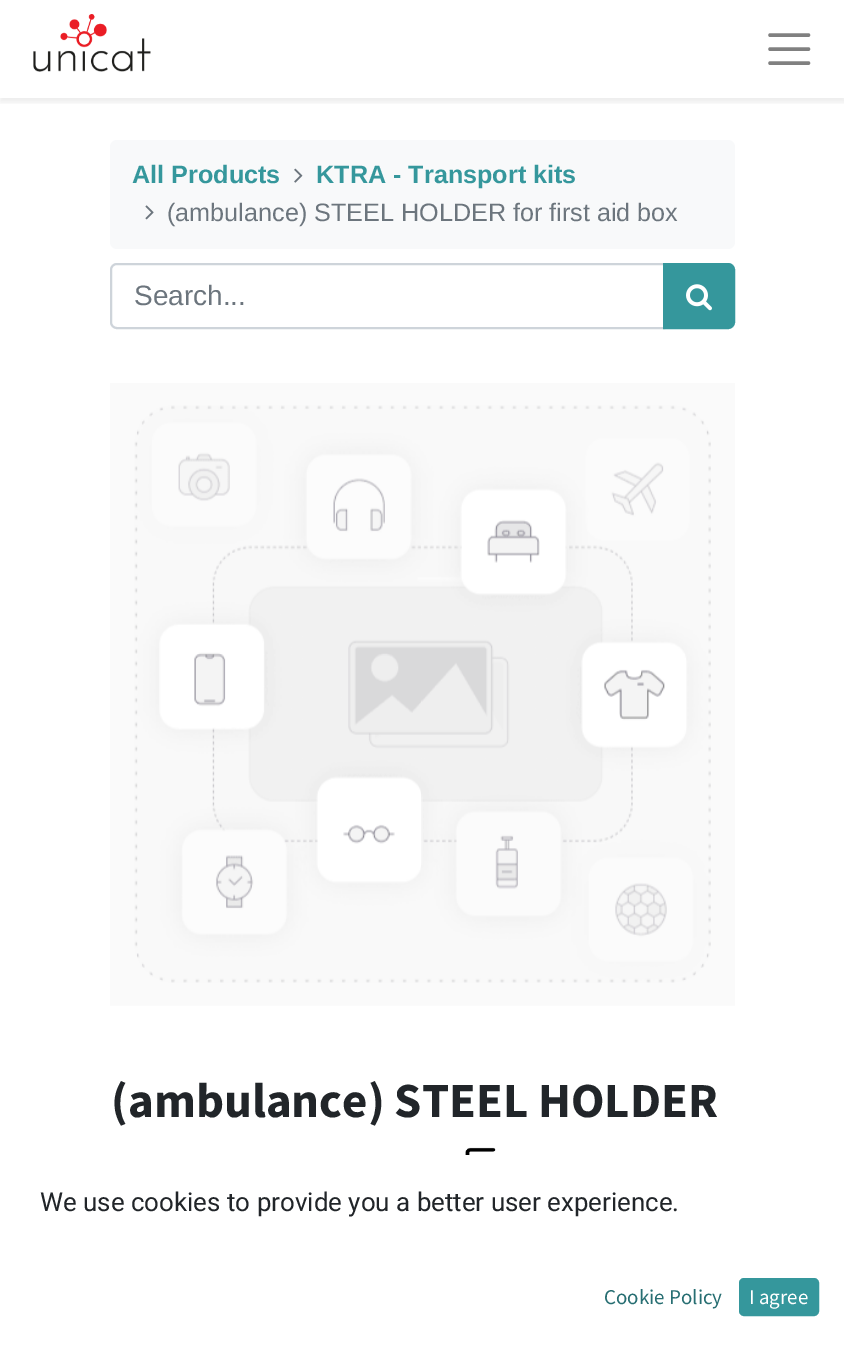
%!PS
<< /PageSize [844 1358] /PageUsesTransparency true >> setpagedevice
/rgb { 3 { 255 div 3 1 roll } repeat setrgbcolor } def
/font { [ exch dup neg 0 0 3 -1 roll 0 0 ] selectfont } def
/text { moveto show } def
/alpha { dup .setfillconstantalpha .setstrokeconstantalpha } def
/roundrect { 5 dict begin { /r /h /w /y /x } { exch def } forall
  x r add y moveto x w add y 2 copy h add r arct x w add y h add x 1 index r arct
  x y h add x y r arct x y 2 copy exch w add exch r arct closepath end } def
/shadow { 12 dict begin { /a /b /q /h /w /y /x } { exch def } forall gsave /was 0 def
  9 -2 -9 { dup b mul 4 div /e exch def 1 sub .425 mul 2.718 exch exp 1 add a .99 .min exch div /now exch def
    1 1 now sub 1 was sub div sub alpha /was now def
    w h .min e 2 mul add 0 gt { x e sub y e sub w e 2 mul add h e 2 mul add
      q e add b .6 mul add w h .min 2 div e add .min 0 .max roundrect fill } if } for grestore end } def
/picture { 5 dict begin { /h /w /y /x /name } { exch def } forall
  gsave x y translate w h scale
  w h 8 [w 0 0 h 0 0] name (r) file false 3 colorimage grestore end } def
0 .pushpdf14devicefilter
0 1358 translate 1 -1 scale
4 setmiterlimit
255 255 255 rgb
0 0 844 1358 rectfill
gsave
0 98 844 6 rectclip
0 0 0 rgb
0 4 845 98 0 3.5 0.07 shadow
grestore
(img_01.rgb) 33 14 118 58 picture
128 128 128 rgb
3.5 setlinewidth
1 setlinecap
770 35 moveto 38.5 0 rlineto 770 49 moveto 38.5 0 rlineto 770 63 moveto 38.5 0 rlineto stroke
248 249 250 rgb
110 140 625 109 7 roundrect fill
(img_02.rgb) 294 168 9 15 picture
(img_03.rgb) 145 205 9 15 picture
206 212 218 rgb
2 setlinewidth
0 setlinecap
117 264 moveto 547 0 rlineto 0 64 rlineto -547 0 rlineto -3.5 0 -6 -2.5 -6 -6 rcurveto 0 -52 rlineto 0 -3.5 2.5 -6 6 -6 rcurveto closepath stroke
53 151 156 rgb
664 264 moveto 64 0 rlineto 3.5 0 6 2.5 6 6 rcurveto 0 52 rlineto 0 3.5 -2.5 6 -6 6 rcurveto -64 0 rlineto closepath gsave fill grestore
stroke
(img_04.rgb) 686 284 26 27 picture
(img_05.rgb) 110 383 625 623 picture
(img_06.rgb) 465 1147 31 8 picture
740 1279 78 36 4 roundrect gsave fill grestore
stroke
/LiberationSans-Bold 25.2 font
(All Products) 132 183 text
(KTRA - Transport kits) 316 183 text
/LiberationSans-Regular 25.2 font
108 117 125 rgb
(\(ambulance\) STEEL HOLDER for first aid box) 167 221 text
/LiberationSans-Regular 28 font
(Search...) 134 305 text
/SourceSansPro-Bold 49 font
33 37 41 rgb
(\(ambulance\) STEEL HOLDER) 111 1117 text
/Roboto-Regular 25.9 font
(We use cookies to provide you a better user experience.) 40 1211 text
/SourceSansPro-Regular 21 font
39 110 114 rgb
(Cookie Policy) 604 1304 text
255 255 255 rgb
(I agree) 749 1304 text
.poppdf14devicefilter showpage
